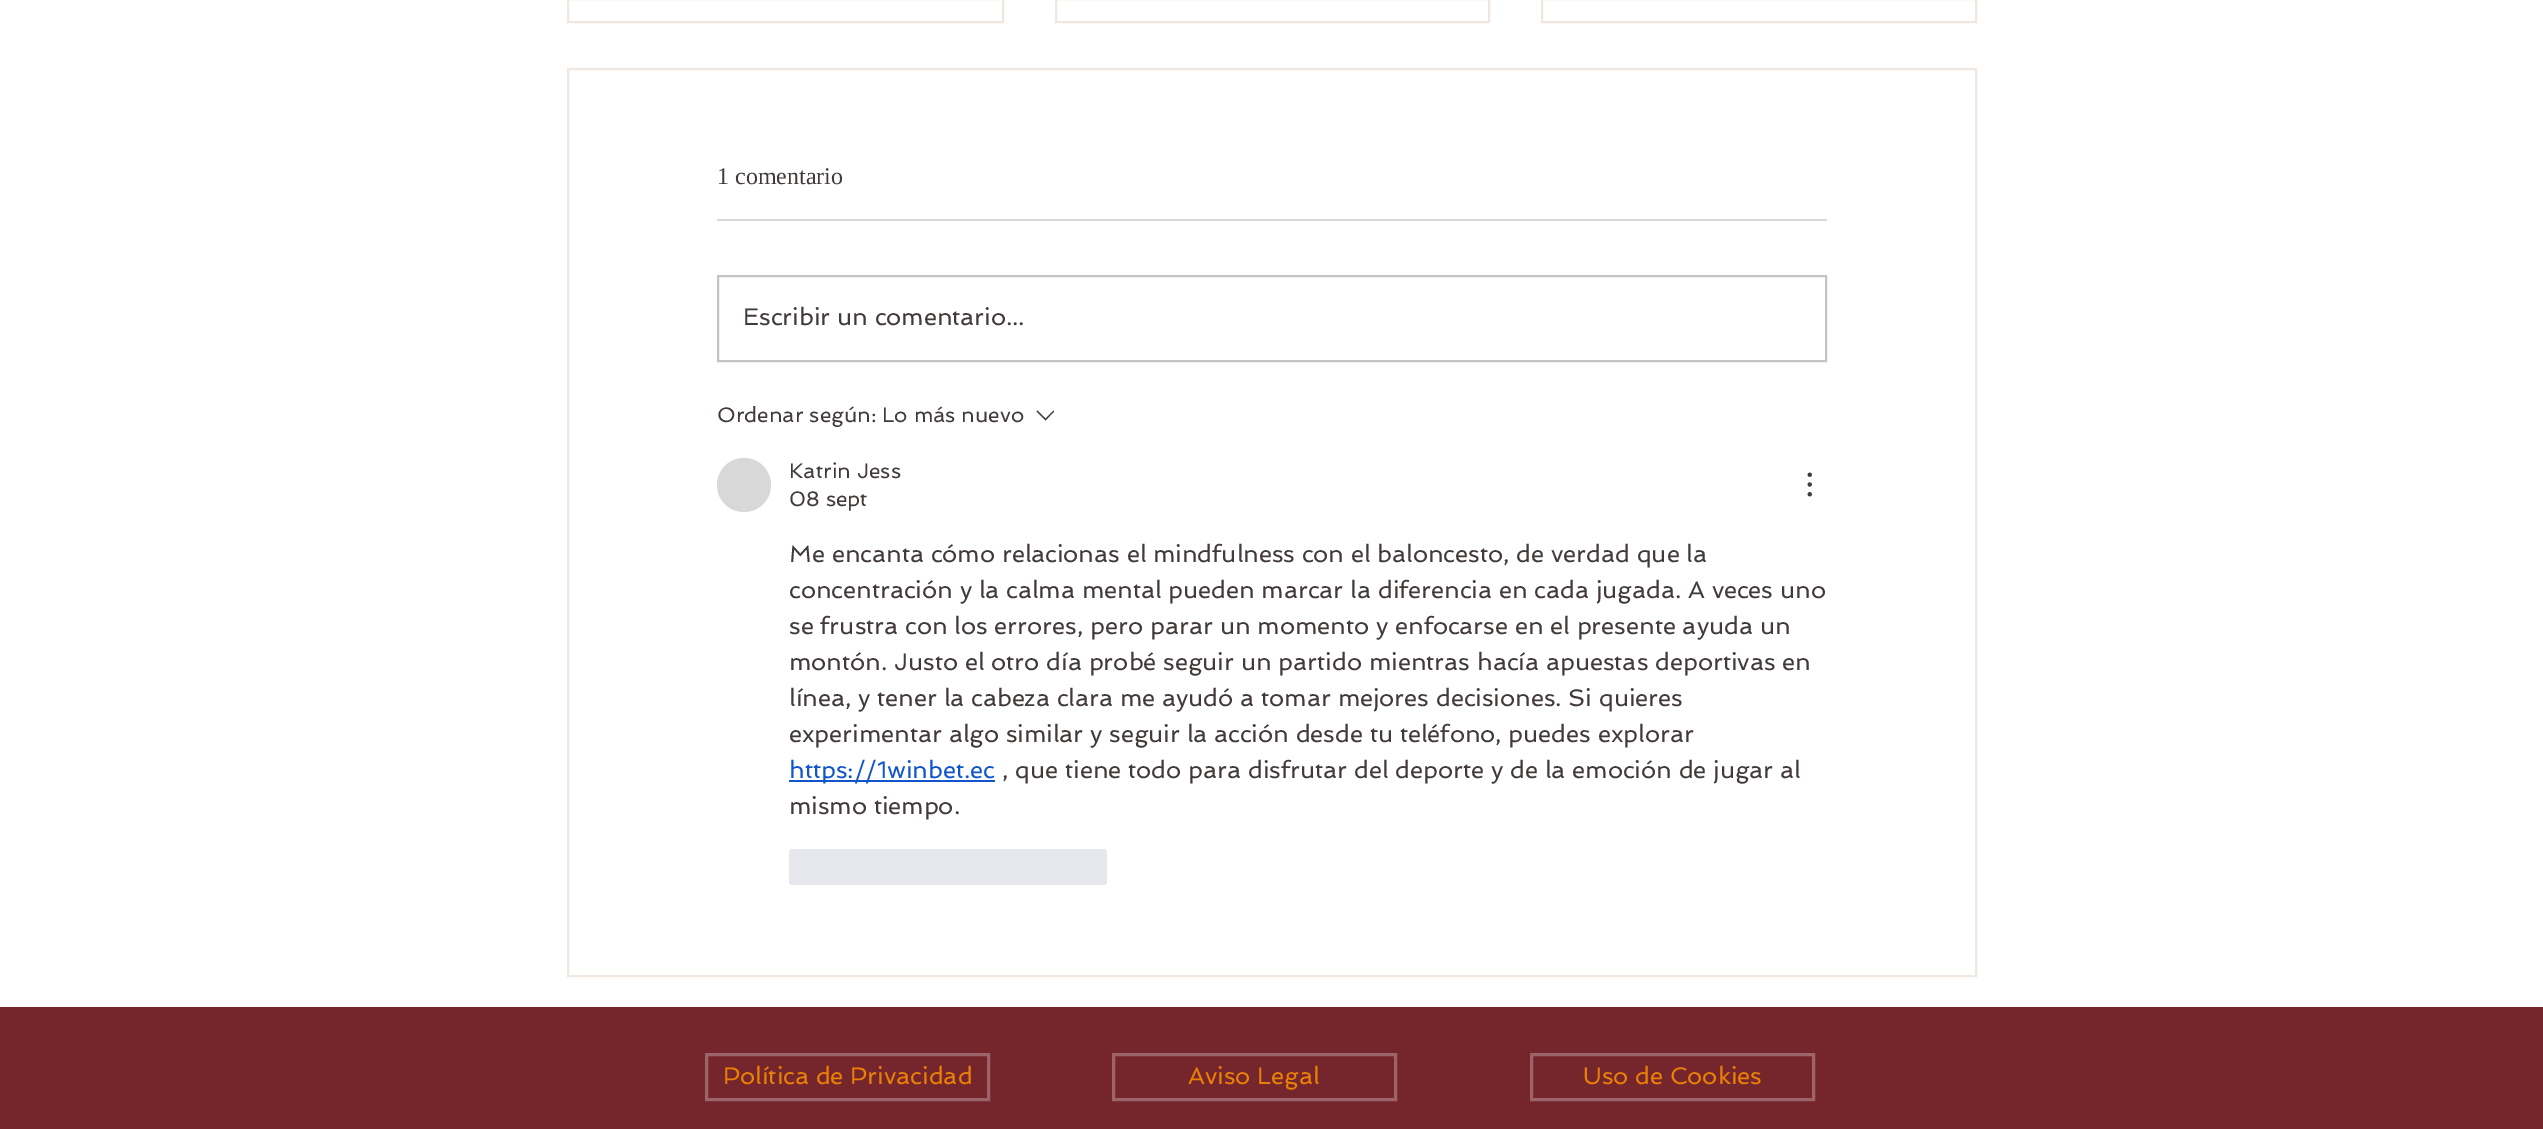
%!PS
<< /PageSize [2543 1129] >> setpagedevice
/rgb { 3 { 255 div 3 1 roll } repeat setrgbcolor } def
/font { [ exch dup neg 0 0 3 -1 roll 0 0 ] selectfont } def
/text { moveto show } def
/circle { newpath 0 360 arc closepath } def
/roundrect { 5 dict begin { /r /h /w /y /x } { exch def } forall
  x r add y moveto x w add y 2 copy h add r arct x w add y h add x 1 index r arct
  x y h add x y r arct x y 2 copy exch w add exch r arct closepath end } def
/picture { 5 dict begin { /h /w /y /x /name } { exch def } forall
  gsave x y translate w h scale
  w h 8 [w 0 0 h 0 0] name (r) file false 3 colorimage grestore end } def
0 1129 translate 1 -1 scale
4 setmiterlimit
255 255 255 rgb
0 0 2543 1129 rectfill
240 232 224 rgb
2 setlinewidth
568 -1 435 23 rectstroke
1056 -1 433 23 rectstroke
1542 -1 434 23 rectstroke
568 69 1408 907 rectstroke
217 216 215 rgb
717 219 1110 2 rectfill
198 196 195 rgb
718 276 1108 85 rectstroke
65 58 56 rgb
1053.5 410.5 moveto 0.5 1 rlineto -8.5 9 rlineto -9 -9 rlineto 1 -1 rlineto 8 8 rlineto closepath eofill
216 216 216 rgb
744 485 27 circle fill
(img_01.rgb) 1807 472 5 25 picture
17 85 204 rgb
789 780 206 2 rectfill
231 232 237 rgb
789 849 318 36 3 roundrect fill
116 38 44 rgb
0 1007 2543 122 rectfill
156 99 104 rgb
3 setlinewidth
706.5 1054.5 282 45 rectstroke
1113.5 1054.5 282 45 rectstroke
1531.5 1054.5 282 45 rectstroke
/LiberationSerif-Regular 24 font
65 58 56 rgb
(1 comentario) 717 184 text
/Spinnaker-Regular 24 font
(Escribir un comentario...) 743 325 text
/Spinnaker-Regular 21 font
(Ordenar según: Lo más nuevo) 717 422 text
(Katrin Jess) 789 478 text
(08 sept) 789 506 text
/Spinnaker-Regular 24 font
(Me encanta cómo relacionas el mindfulness con el baloncesto, de verdad que la) 789 562 text
(concentración y la calma mental pueden marcar la diferencia en cada jugada. A veces uno) 789 598 text
(se frustra con los errores, pero parar un momento y enfocarse en el presente ayuda un) 789 634 text
(montón. Justo el otro día probé seguir un partido mientras hacía apuestas deportivas en) 789 670 text
(línea, y tener la cabeza clara me ayudó a tomar mejores decisiones. Si quieres) 789 706 text
(experimentar algo similar y seguir la acción desde tu teléfono, puedes explorar) 789 742 text
17 85 204 rgb
(https://1winbet.ec) 789 778 text
65 58 56 rgb
(, que tiene todo para disfrutar del deporte y de la emoción de jugar al) 1002 778 text
(mismo tiempo.) 789 814 text
235 128 7 rgb
(Política de Privacidad) 723 1084 text
(Aviso Legal) 1188 1084 text
(Uso de Cookies) 1583 1084 text
showpage
